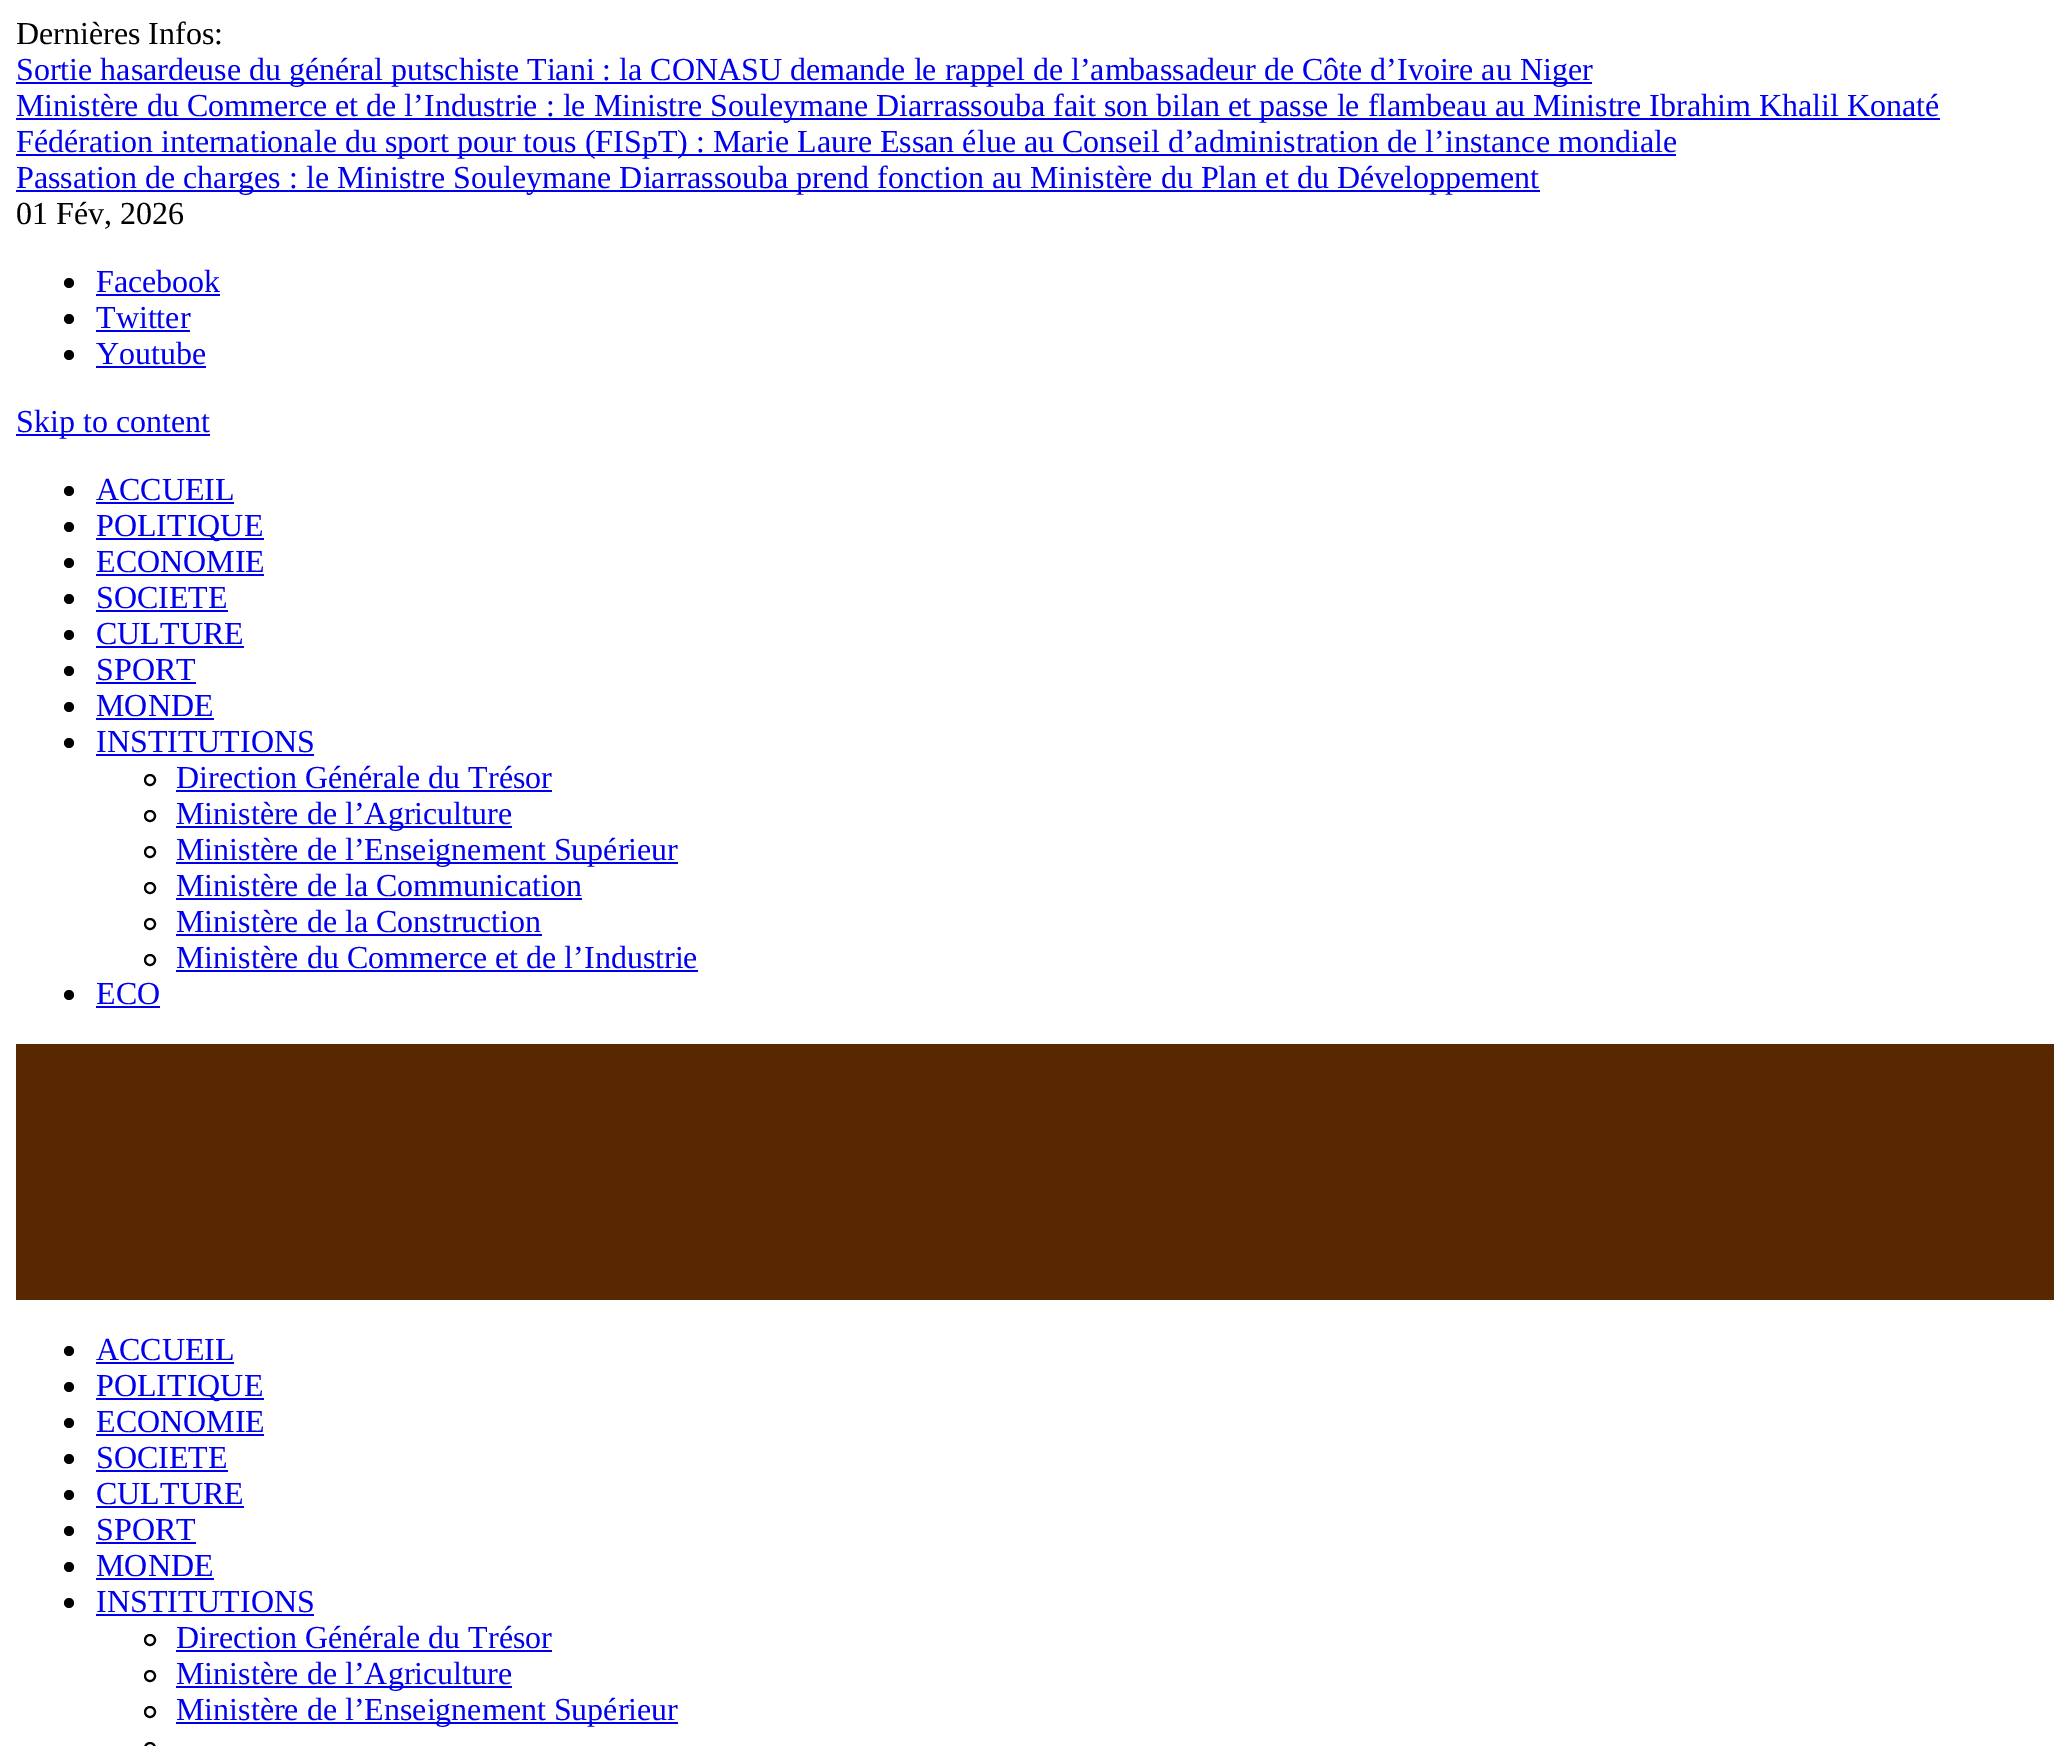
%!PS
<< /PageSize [2069 1746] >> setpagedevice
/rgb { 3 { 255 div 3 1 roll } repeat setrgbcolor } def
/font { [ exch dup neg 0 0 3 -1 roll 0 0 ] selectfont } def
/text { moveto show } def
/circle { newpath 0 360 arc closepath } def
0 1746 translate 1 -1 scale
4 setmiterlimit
255 255 255 rgb
0 0 2069 1746 rectfill
0 0 238 rgb
16 82 1576 2 rectfill
16 118 1924 2 rectfill
16 154 1660 2 rectfill
16 190 1524 2 rectfill
0 0 0 rgb
69 283 5 circle fill
0 0 238 rgb
96 294 124 2 rectfill
0 0 0 rgb
69 319 5 circle fill
0 0 238 rgb
96 330 94 2 rectfill
0 0 0 rgb
69 355 5 circle fill
0 0 238 rgb
96 366 110 2 rectfill
16 434 194 2 rectfill
0 0 0 rgb
69 491 5 circle fill
0 0 238 rgb
96 502 138 2 rectfill
0 0 0 rgb
69 527 5 circle fill
0 0 238 rgb
96 538 168 2 rectfill
0 0 0 rgb
69 563 5 circle fill
0 0 238 rgb
96 574 168 2 rectfill
0 0 0 rgb
69 599 5 circle fill
0 0 238 rgb
96 610 132 2 rectfill
0 0 0 rgb
69 635 5 circle fill
0 0 238 rgb
96 646 148 2 rectfill
0 0 0 rgb
69 671 5 circle fill
0 0 238 rgb
96 682 100 2 rectfill
0 0 0 rgb
69 707 5 circle fill
0 0 238 rgb
96 718 118 2 rectfill
0 0 0 rgb
69 743 5 circle fill
0 0 238 rgb
96 754 218 2 rectfill
0 0 0 rgb
2 setlinewidth
150 780 5 circle stroke
0 0 238 rgb
176 790 376 2 rectfill
0 0 0 rgb
150 816 5 circle stroke
0 0 238 rgb
176 826 336 2 rectfill
0 0 0 rgb
150 852 5 circle stroke
0 0 238 rgb
176 862 502 2 rectfill
0 0 0 rgb
150 888 5 circle stroke
0 0 238 rgb
176 898 406 2 rectfill
0 0 0 rgb
150 924 5 circle stroke
0 0 238 rgb
176 934 366 2 rectfill
0 0 0 rgb
150 960 5 circle stroke
0 0 238 rgb
176 970 522 2 rectfill
0 0 0 rgb
69 995 5 circle fill
0 0 238 rgb
96 1006 64 2 rectfill
88 41 0 rgb
16 1044 2038 256 rectfill
0 0 0 rgb
69 1351 5 circle fill
0 0 238 rgb
96 1362 138 2 rectfill
0 0 0 rgb
69 1387 5 circle fill
0 0 238 rgb
96 1398 168 2 rectfill
0 0 0 rgb
69 1423 5 circle fill
0 0 238 rgb
96 1434 168 2 rectfill
0 0 0 rgb
69 1459 5 circle fill
0 0 238 rgb
96 1470 132 2 rectfill
0 0 0 rgb
69 1495 5 circle fill
0 0 238 rgb
96 1506 148 2 rectfill
0 0 0 rgb
69 1531 5 circle fill
0 0 238 rgb
96 1542 100 2 rectfill
0 0 0 rgb
69 1567 5 circle fill
0 0 238 rgb
96 1578 118 2 rectfill
0 0 0 rgb
69 1603 5 circle fill
0 0 238 rgb
96 1614 218 2 rectfill
0 0 0 rgb
150 1640 5 circle stroke
0 0 238 rgb
176 1650 376 2 rectfill
0 0 0 rgb
150 1676 5 circle stroke
0 0 238 rgb
176 1686 336 2 rectfill
0 0 0 rgb
150 1712 5 circle stroke
0 0 238 rgb
176 1722 502 2 rectfill
0 0 0 rgb
150 1748 5 circle stroke
/LiberationSerif-Regular 32 font
(Dernières Infos:) 16 44 text
0 0 238 rgb
(Sortie hasardeuse du général putschiste Tiani : la CONASU demande le rappel de l’ambassadeur de Côte d’Ivoire au Niger) 16 80 text
(Ministère du Commerce et de l’Industrie : le Ministre Souleymane Diarrassouba fait son bilan et passe le flambeau au Ministre Ibrahim Khalil Konaté) 16 116 text
(Fédération internationale du sport pour tous \(FISpT\) : Marie Laure Essan élue au Conseil d’administration de l’instance mondiale) 16 152 text
(Passation de charges : le Ministre Souleymane Diarrassouba prend fonction au Ministère du Plan et du Développement) 16 188 text
0 0 0 rgb
(01 Fév, 2026) 16 224 text
0 0 238 rgb
(Facebook) 96 292 text
(Twitter) 96 328 text
(Youtube) 96 364 text
(Skip to content) 16 432 text
(ACCUEIL) 96 500 text
(POLITIQUE) 96 536 text
(ECONOMIE) 96 572 text
(SOCIETE) 96 608 text
(CULTURE) 96 644 text
(SPORT) 96 680 text
(MONDE) 96 716 text
(INSTITUTIONS) 96 752 text
(Direction Générale du Trésor) 176 788 text
(Ministère de l’Agriculture) 176 824 text
(Ministère de l’Enseignement Supérieur) 176 860 text
(Ministère de la Communication) 176 896 text
(Ministère de la Construction) 176 932 text
(Ministère du Commerce et de l’Industrie) 176 968 text
(ECO) 96 1004 text
(ACCUEIL) 96 1360 text
(POLITIQUE) 96 1396 text
(ECONOMIE) 96 1432 text
(SOCIETE) 96 1468 text
(CULTURE) 96 1504 text
(SPORT) 96 1540 text
(MONDE) 96 1576 text
(INSTITUTIONS) 96 1612 text
(Direction Générale du Trésor) 176 1648 text
(Ministère de l’Agriculture) 176 1684 text
(Ministère de l’Enseignement Supérieur) 176 1720 text
showpage
